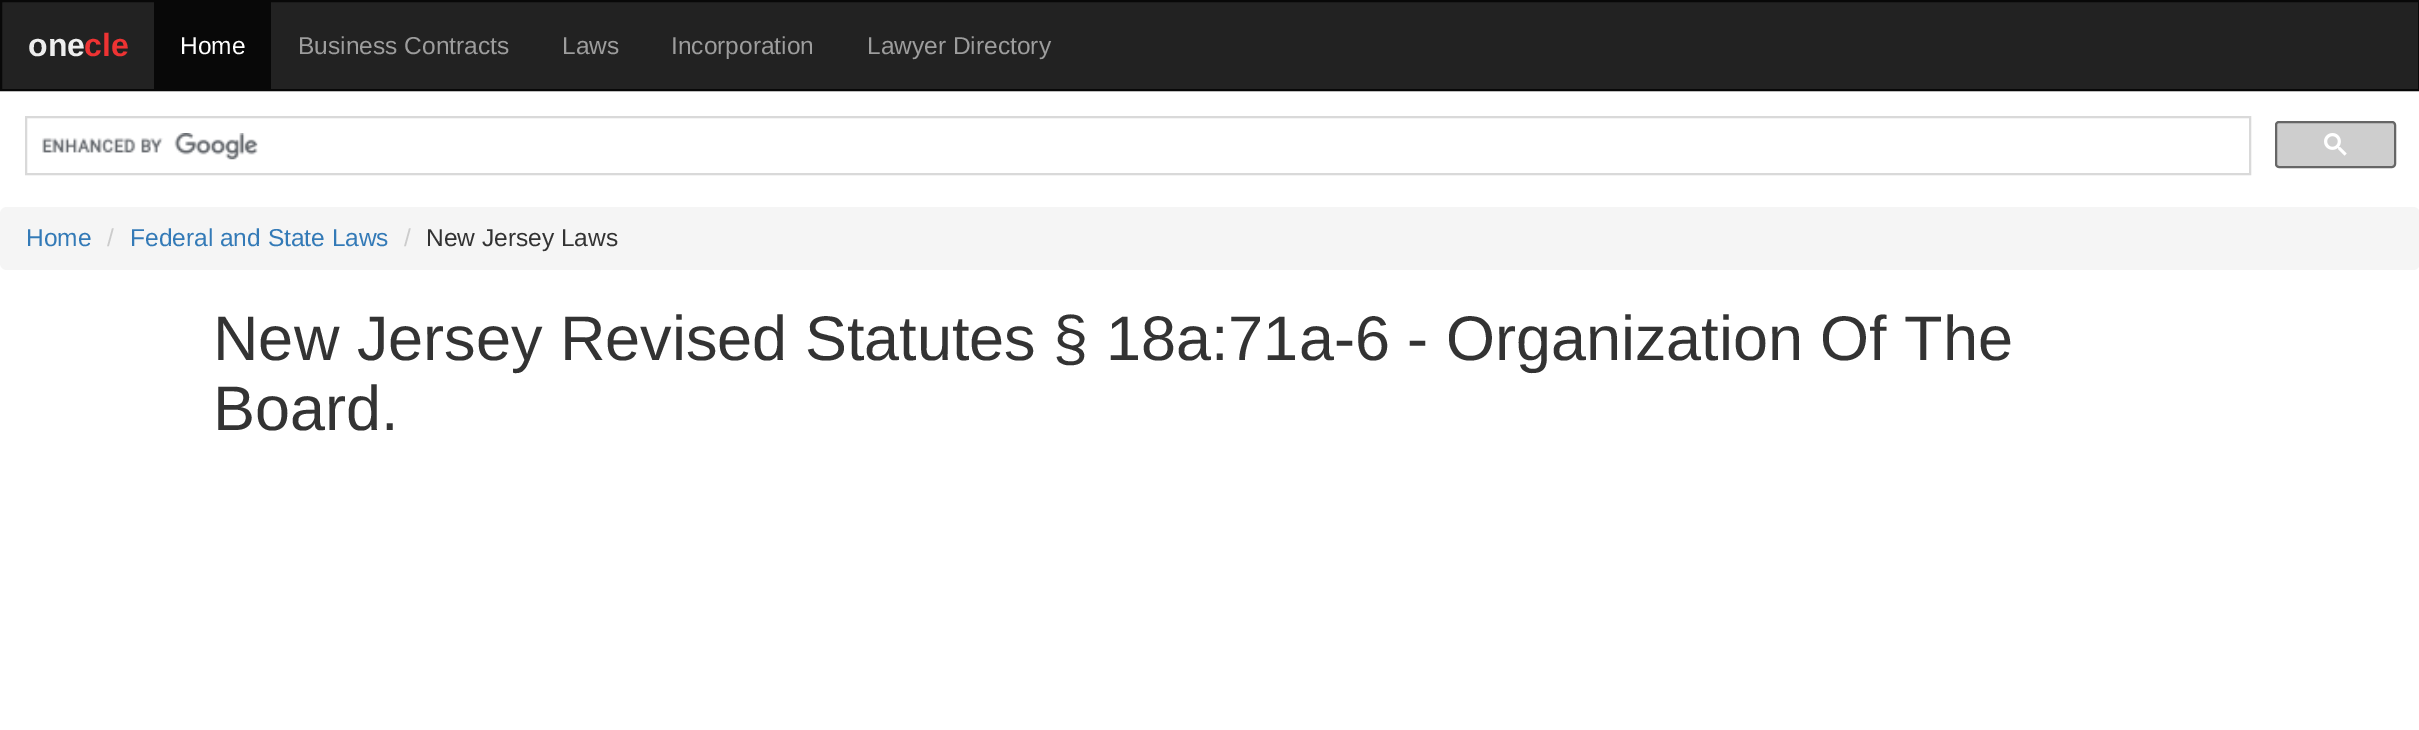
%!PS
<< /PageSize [2419 730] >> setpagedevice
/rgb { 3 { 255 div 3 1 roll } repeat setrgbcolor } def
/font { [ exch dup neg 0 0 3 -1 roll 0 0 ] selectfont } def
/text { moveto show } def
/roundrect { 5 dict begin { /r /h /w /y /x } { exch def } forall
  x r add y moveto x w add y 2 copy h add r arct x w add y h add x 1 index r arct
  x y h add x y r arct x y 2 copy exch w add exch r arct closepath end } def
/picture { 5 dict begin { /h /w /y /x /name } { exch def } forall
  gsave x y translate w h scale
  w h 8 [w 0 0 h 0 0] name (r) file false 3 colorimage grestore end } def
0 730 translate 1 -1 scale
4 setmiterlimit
255 255 255 rgb
0 0 2419 730 rectfill
34 34 34 rgb
1 1 moveto 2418 0 rlineto 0 89 rlineto -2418 0 rlineto closepath gsave fill grestore
8 8 8 rgb
2 setlinewidth
stroke
154 2 117 87 rectfill
217 217 217 rgb
26 117 2224 57 rectstroke
(img_01.rgb) 42 133 216 27 picture
206 206 206 rgb
2276 122 119 45 3 roundrect gsave fill grestore
102 102 102 rgb
stroke
(img_02.rgb) 2324 133 23 23 picture
245 245 245 rgb
0 207 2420 63 7 roundrect fill
/LiberationSans-Bold 32 font
238 238 238 rgb
(one) 28 56 text
238 51 51 rgb
(cle) 84 56 text
/LiberationSans-Regular 24.5 font
255 255 255 rgb
(Home) 180 54 text
157 157 157 rgb
(Business Contracts) 298 54 text
(Laws) 562 54 text
(Incorporation) 671 54 text
(Lawyer Directory) 867 54 text
51 122 183 rgb
(Home) 26 246 text
204 204 204 rgb
(/) 107 246 text
51 122 183 rgb
(Federal and State Laws) 130 246 text
204 204 204 rgb
(/) 404 246 text
51 51 51 rgb
(New Jersey Laws) 426 246 text
/LiberationSans-Regular 63 font
(New Jersey Revised Statutes § 18a:71a-6 - Organization Of The) 213 360 text
(Board.) 213 430 text
showpage
